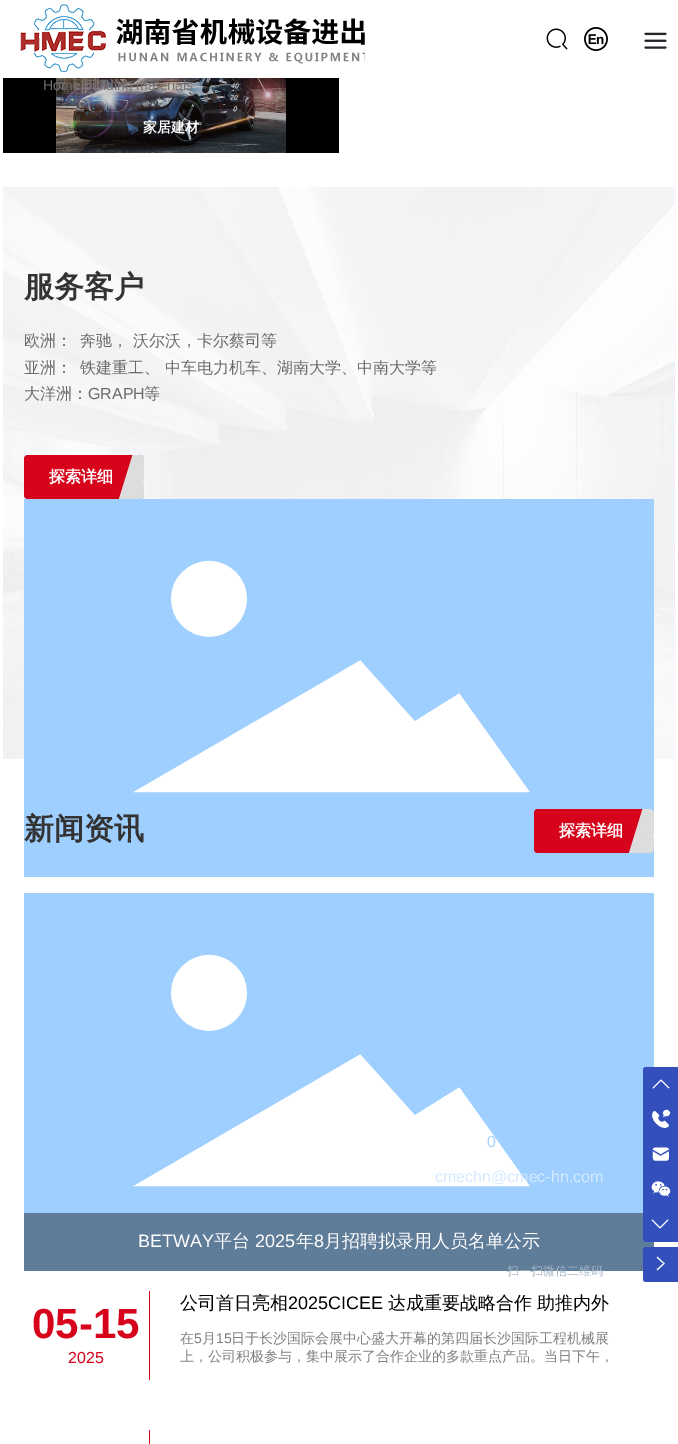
%!PS
<< /PageSize [678 1444] >> setpagedevice
/rgb { 3 { 255 div 3 1 roll } repeat setrgbcolor } def
/font { [ exch dup neg 0 0 3 -1 roll 0 0 ] selectfont } def
/text { moveto show } def
/picture { 5 dict begin { /h /w /y /x /name } { exch def } forall
  gsave x y translate w h scale
  w h 8 [w 0 0 h 0 0] name (r) file false 3 colorimage grestore end } def
0 1444 translate 1 -1 scale
4 setmiterlimit
255 255 255 rgb
0 0 678 1444 rectfill
(img_01.rgb) 20 4 345 68 picture
(img_02.rgb) 546 28 22 22 picture
(img_03.rgb) 584 27 24 24 picture
(img_04.rgb) 644 32 23 17 picture
0 0 0 rgb
3 78 336 75 rectfill
(img_05.rgb) 56 78 230 75 picture
(img_06.rgb) 3 187 672 572 picture
(img_07.rgb) 24 455 120 44 picture
(img_08.rgb) 24 499 630 378 picture
(img_09.rgb) 534 809 120 44 picture
(img_10.rgb) 24 893 630 320 picture
95 124 153 rgb
24 1213 630 58 rectfill
214 3 26 rgb
149 1291 1 89 rectfill
149 1430 1 14 rectfill
50 79 187 rgb
646 1067 moveto 32 0 rlineto 0 175 rlineto -32 0 rlineto -1.5 0 -3 -1.5 -3 -3 rcurveto 0 -169 rlineto 0 -1.5 1.5 -3 3 -3 rcurveto closepath fill
(img_11.rgb) 652 1079 18 10 picture
(img_12.rgb) 652 1109 19 19 picture
(img_13.rgb) 652 1147 18 14 picture
(img_14.rgb) 651 1219 18 10 picture
(img_15.rgb) 651 1181 20 16 picture
646 1247 moveto 32 0 rlineto 0 35 rlineto -32 0 rlineto -1.5 0 -3 -1.5 -3 -3 rcurveto 0 -29 rlineto 0 -1.5 1.5 -3 3 -3 rcurveto closepath fill
(img_16.rgb) 656 1256 9 15 picture
/LiberationSans-Regular 14 font
120 113 113 rgb
(Home building materials) 43 90 text
/WenQuanYiZenHei-Bold 14 font
255 255 255 rgb
(家居建材) 143 132 text
/WenQuanYiZenHei-Bold 30 font
51 51 51 rgb
(服务客户) 24 297 text
/WenQuanYiZenHei-Medium 16 font
106 106 106 rgb
(欧洲：) 24 346 text
(奔驰， 沃尔沃，卡尔蔡司等) 80 346 text
(亚洲：) 24 373 text
(铁建重工、 中车电力机车、湖南大学、中南大学等) 80 373 text
(大洋洲：) 24 399 text
/LiberationSans-Regular 16 font
(GRAPH) 88 399 text
/WenQuanYiZenHei-Medium 16 font
(等) 144 399 text
/WenQuanYiZenHei-Bold 16 font
255 255 255 rgb
(探索详细) 49 482 text
/WenQuanYiZenHei-Bold 30 font
51 51 51 rgb
(新闻资讯) 24 839 text
/WenQuanYiZenHei-Bold 16 font
255 255 255 rgb
(探索详细) 559 836 text
/LiberationSans-Regular 18 font
(BETWAY) 138 1247 text
/WenQuanYiZenHei-Medium 18 font
(平台) 214 1247 text
/LiberationSans-Regular 18 font
(2025) 255 1247 text
/WenQuanYiZenHei-Medium 18 font
(年) 296 1247 text
/LiberationSans-Regular 18 font
(8) 314 1247 text
/WenQuanYiZenHei-Medium 18 font
(月招聘拟录用人员名单公示) 324 1247 text
/LiberationSans-Bold 42 font
214 3 26 rgb
(05-15) 32 1338 text
/LiberationSans-Regular 16 font
(2025) 68 1363 text
/WenQuanYiZenHei-Medium 18 font
0 0 0 rgb
(公司首日亮相) 180 1309 text
/LiberationSans-Regular 18 font
(2025CICEE) 288 1309 text
/WenQuanYiZenHei-Medium 18 font
(达成重要战略合作 助推内外) 388 1309 text
/WenQuanYiZenHei-Medium 14 font
128 128 128 rgb
(在) 180 1343 text
/LiberationSans-Regular 14 font
(5) 194 1343 text
/WenQuanYiZenHei-Medium 14 font
(月) 202 1343 text
/LiberationSans-Regular 14 font
(15) 216 1343 text
/WenQuanYiZenHei-Medium 14 font
(日于长沙国际会展中心盛大开幕的第四届长沙国际工程机械展) 231 1343 text
(上，公司积极参与，集中展示了合作企业的多款重点产品。当日下午，) 180 1361 text
/LiberationSans-Regular 16 font
170 212 255 rgb
(0) 487 1147 text
212 234 255 rgb
(cmechn@cmec-hn.com) 435 1182 text
/WenQuanYiZenHei-Medium 12 font
167 183 199 rgb
(扫一扫微信二维码) 507 1275 text
showpage
